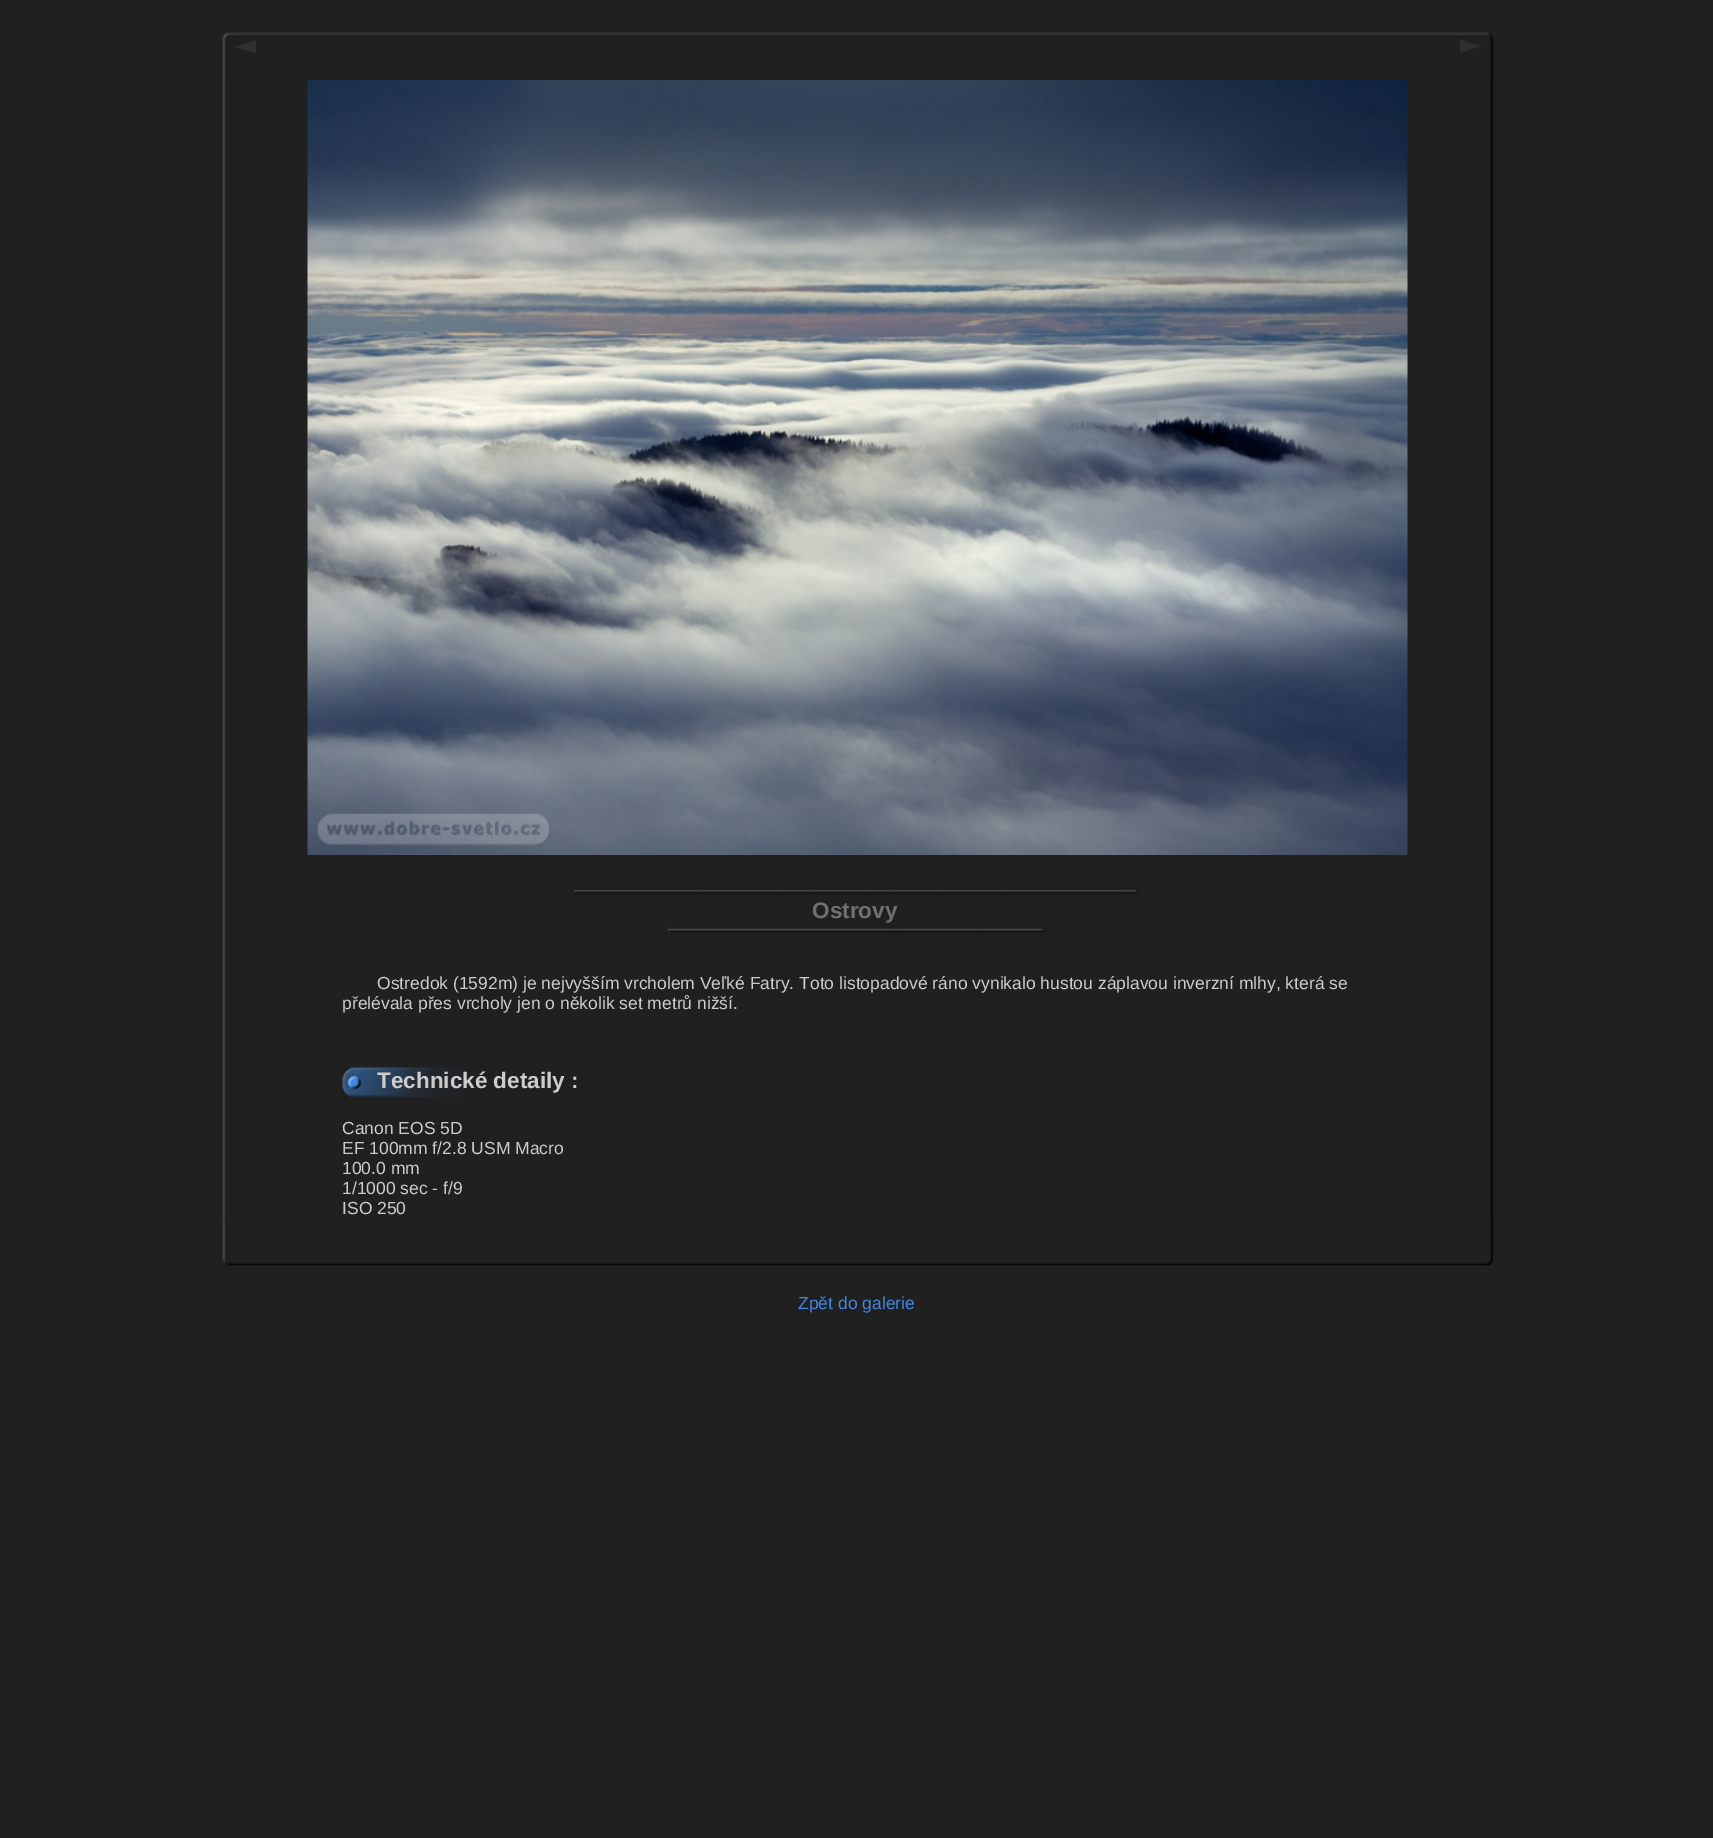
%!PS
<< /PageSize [1713 1838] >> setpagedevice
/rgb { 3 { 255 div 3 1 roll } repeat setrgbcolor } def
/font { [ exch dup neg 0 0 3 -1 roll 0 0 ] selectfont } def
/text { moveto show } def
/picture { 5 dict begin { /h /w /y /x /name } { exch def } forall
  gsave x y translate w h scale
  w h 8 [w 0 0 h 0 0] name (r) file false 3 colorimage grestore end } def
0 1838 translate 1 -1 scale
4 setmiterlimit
32 32 32 rgb
0 0 1713 1838 rectfill
(img_01.rgb) 222 32 636 48 picture
(img_02.rgb) 857 32 637 48 picture
(img_03.rgb) 222 80 1272 1138 picture
(img_04.rgb) 307 80 1101 775 picture
(img_05.rgb) 573 890 566 43 picture
(img_06.rgb) 342 1067 123 31 picture
(img_07.rgb) 222 1217 1272 49 picture
/LiberationSans-Bold 22.5 font
112 112 112 rgb
(Ostrovy) 812 918 text
/LiberationSans-Regular 17.5 font
204 204 204 rgb
(Ostredok \(1592m\) je nejvyšším vrcholem Veľké Fatry. Toto listopadové ráno vynikalo hustou záplavou inverzní mlhy, která se) 377 989 text
(přelévala přes vrcholy jen o několik set metrů nižší.) 342 1009 text
/LiberationSans-Bold 22.5 font
(Technické detaily :) 377 1088 text
/LiberationSans-Regular 17.5 font
(Canon EOS 5D) 342 1134 text
(EF 100mm f/2.8 USM Macro) 342 1154 text
(100.0 mm) 342 1174 text
(1/1000 sec - f/9) 342 1194 text
(ISO 250) 342 1214 text
64 136 224 rgb
(Zpět do galerie) 798 1309 text
showpage
